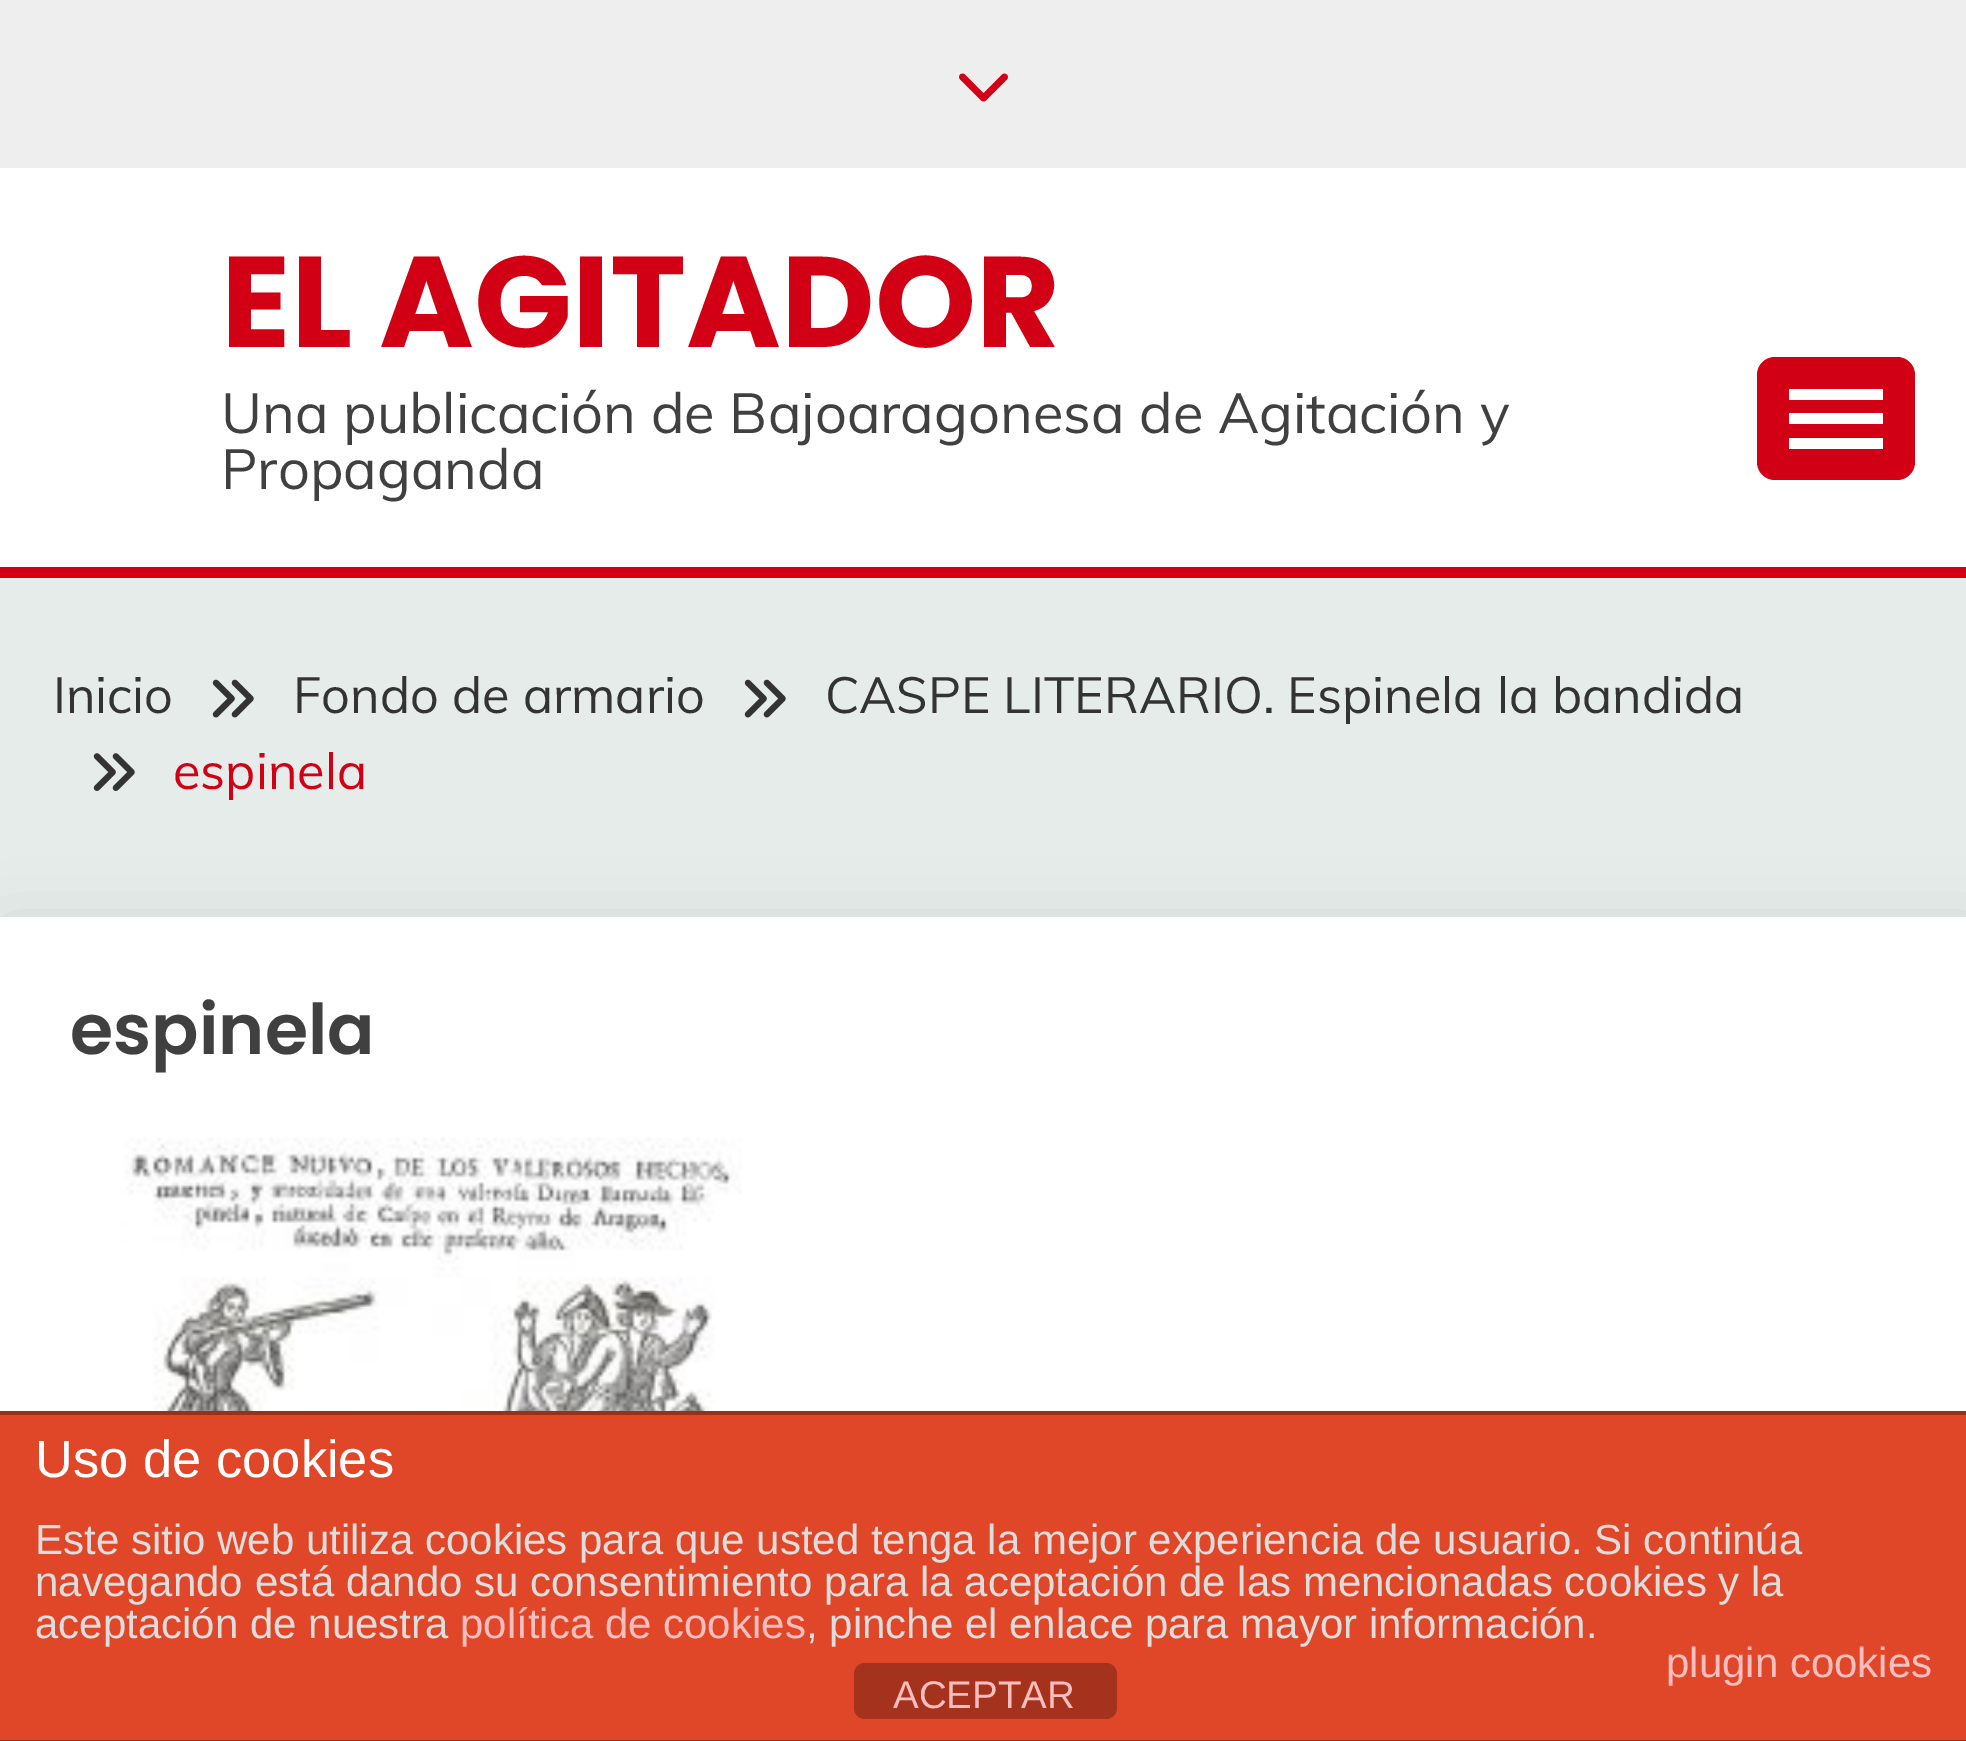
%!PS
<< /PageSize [1966 1741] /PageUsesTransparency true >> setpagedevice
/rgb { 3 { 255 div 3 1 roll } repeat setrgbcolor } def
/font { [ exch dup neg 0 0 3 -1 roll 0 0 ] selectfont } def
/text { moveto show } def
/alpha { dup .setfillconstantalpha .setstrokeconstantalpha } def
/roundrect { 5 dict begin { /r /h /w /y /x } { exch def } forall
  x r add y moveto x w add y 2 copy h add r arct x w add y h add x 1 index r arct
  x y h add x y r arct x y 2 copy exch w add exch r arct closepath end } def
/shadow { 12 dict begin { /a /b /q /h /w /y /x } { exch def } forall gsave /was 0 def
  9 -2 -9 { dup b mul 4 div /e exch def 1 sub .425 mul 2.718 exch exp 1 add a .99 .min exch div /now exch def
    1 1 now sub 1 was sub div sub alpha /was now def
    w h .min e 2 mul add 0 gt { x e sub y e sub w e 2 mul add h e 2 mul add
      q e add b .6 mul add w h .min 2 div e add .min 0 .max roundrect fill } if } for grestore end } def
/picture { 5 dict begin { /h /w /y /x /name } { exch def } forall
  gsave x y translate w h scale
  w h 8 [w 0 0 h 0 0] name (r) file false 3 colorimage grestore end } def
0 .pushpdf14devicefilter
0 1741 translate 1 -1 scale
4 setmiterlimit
229 236 233 rgb
0 0 1966 1741 rectfill
255 255 255 rgb
0 168 1966 399 rectfill
238 238 238 rgb
0 0 1966 168 rectfill
(img_01.rgb) 959 73 49 29 picture
209 0 20 rgb
1757 357 158 123 18 roundrect fill
255 255 255 rgb
1789 389 94 11 rectfill
1789 413 94 11 rectfill
1789 438 94 11 rectfill
209 0 20 rgb
0 567 1966 11 rectfill
(img_02.rgb) 212 679 42 39 picture
(img_02.rgb) 744 679 42 39 picture
(img_03.rgb) 93 753 42 38 picture
0 0 0 rgb
7 935 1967 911 0 35 0.14 shadow
255 255 255 rgb
0 917 1966 494 rectfill
(img_04.rgb) 122 1137 620 274 picture
224 71 41 rgb
0 1415 1966 325 rectfill
153 48 27 rgb
0 1411 1966 4 rectfill
0 1740 1966 1 rectfill
165 50 28 rgb
854 1663 263 56 11 roundrect fill
/Poppins-Bold 128.75 font
209 0 20 rgb
(EL AGITADOR) 221 347 text
/Muli-Regular 56 font
64 64 64 rgb
(Una publicación de Bajoaragonesa de Agitación y) 221 433 text
(Propaganda) 221 489 text
/Muli-Regular 50.4 font
51 51 51 rgb
(Inicio) 53 713 text
(Fondo de armario) 293 713 text
(CASPE LITERARIO. Espinela la bandida) 825 713 text
209 0 20 rgb
(espinela) 173 789 text
/Poppins-SemiBold 70 font
64 64 64 rgb
(espinela) 70 1054 text
/LiberationSans-Regular 52.5 font
255 255 255 rgb
(Uso de cookies) 35 1477 text
/LiberationSans-Regular 42 font
221 221 221 rgb
(Este sitio web utiliza cookies para que usted tenga la mejor experiencia de usuario. Si continúa) 35 1554 text
(navegando está dando su consentimiento para la aceptación de las mencionadas cookies y la) 35 1596 text
(aceptación de nuestra) 35 1638 text
254 190 190 rgb
(política de cookies) 460 1638 text
221 221 221 rgb
(, pinche el enlace para mayor información.) 806 1638 text
254 190 190 rgb
(plugin cookies) 1666 1677 text
/LiberationSans-Regular 38.5 font
(ACEPTAR) 893 1708 text
.poppdf14devicefilter showpage
